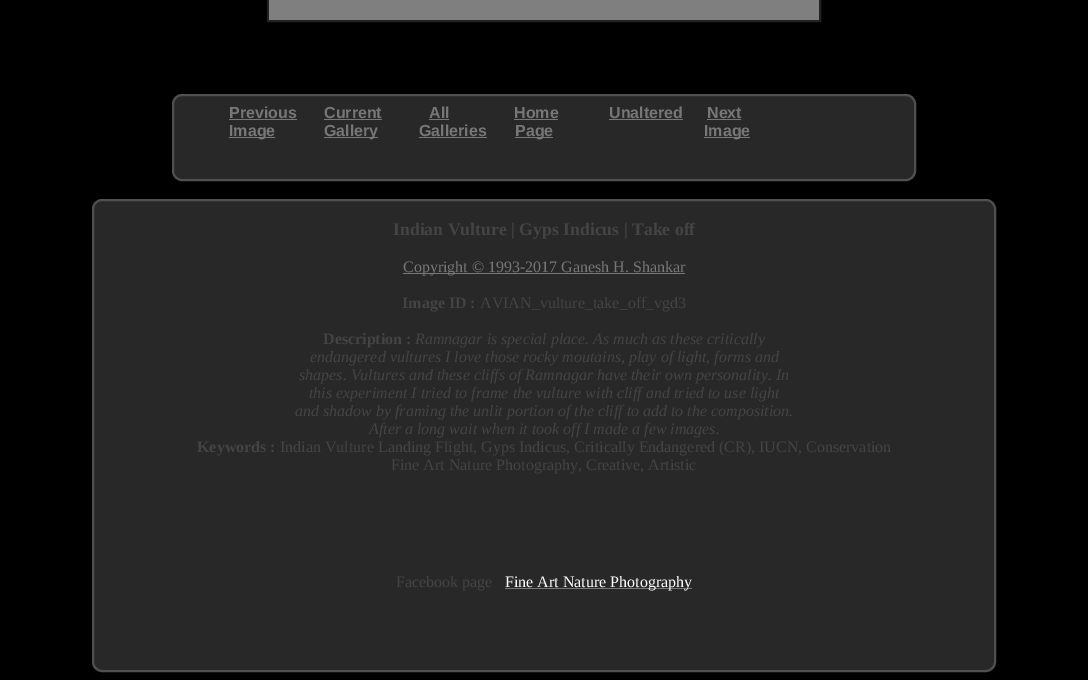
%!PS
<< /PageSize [1088 680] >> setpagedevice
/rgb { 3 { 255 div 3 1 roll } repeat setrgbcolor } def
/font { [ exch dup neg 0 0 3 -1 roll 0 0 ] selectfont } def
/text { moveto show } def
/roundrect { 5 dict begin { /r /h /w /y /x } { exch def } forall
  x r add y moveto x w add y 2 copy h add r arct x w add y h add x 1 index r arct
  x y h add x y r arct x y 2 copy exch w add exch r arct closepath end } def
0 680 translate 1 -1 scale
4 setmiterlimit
0 0 0 rgb
0 0 1088 680 rectfill
34 34 34 rgb
2 setlinewidth
268 -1 552 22 rectstroke
127 127 127 rgb
269 0 550 20 rectfill
40 40 40 rgb
173 95 742 85 9 roundrect gsave fill grestore
80 80 80 rgb
stroke
119 119 119 rgb
229 119 68 1 rectfill
229 137 46 1 rectfill
324 119 58 1 rectfill
324 137 54 1 rectfill
429 119 20 1 rectfill
419 137 68 1 rectfill
514 119 44 1 rectfill
515 137 38 1 rectfill
609 119 74 1 rectfill
707 119 34 1 rectfill
704 137 46 1 rectfill
40 40 40 rgb
93 200 902 471 9 roundrect gsave fill grestore
80 80 80 rgb
stroke
119 119 119 rgb
403 273 282 1 rectfill
505 588 187 1 rectfill
/LiberationSans-Bold 16 font
(Previous) 229 118 text
(Image) 229 136 text
(Current) 324 118 text
(Gallery) 324 136 text
(All) 429 118 text
(Galleries) 419 136 text
(Home) 514 118 text
(Page) 515 136 text
(Unaltered) 609 118 text
(Next) 707 118 text
(Image) 704 136 text
/LiberationSerif-Bold 17.7 font
68 68 68 rgb
(Indian Vulture | Gyps Indicus | Take off) 393 235 text
/LiberationSerif-Regular 16 font
119 119 119 rgb
(Copyright © 1993-2017 Ganesh H. Shankar) 403 272 text
/LiberationSerif-Bold 16 font
68 68 68 rgb
(Image ID :) 402 308 text
/LiberationSerif-Regular 16 font
(AVIAN_vulture_take_off_vgd3) 480 308 text
/LiberationSerif-Bold 16 font
(Description :) 323 344 text
/LiberationSerif-Italic 16 font
(Ramnagar is special place. As much as these critically) 415 344 text
(endangered vultures I love those rocky moutains, play of light, forms and) 310 362 text
(shapes. Vultures and these cliffs of Ramnagar have their own personality. In) 299 380 text
(this experiment I tried to frame the vulture with cliff and tried to use light) 309 398 text
(and shadow by framing the unlit portion of the cliff to add to the composition.) 295 416 text
(After a long wait when it took off I made a few images.) 369 434 text
/LiberationSerif-Bold 16 font
(Keywords :) 197 452 text
/LiberationSerif-Regular 16 font
(Indian Vulture Landing Flight, Gyps Indicus, Critically Endangered \(CR\), IUCN, Conservation) 280 452 text
(Fine Art Nature Photography, Creative, Artistic) 391 470 text
(Facebook page) 396 587 text
255 255 255 rgb
(Fine Art Nature Photography) 505 587 text
showpage
